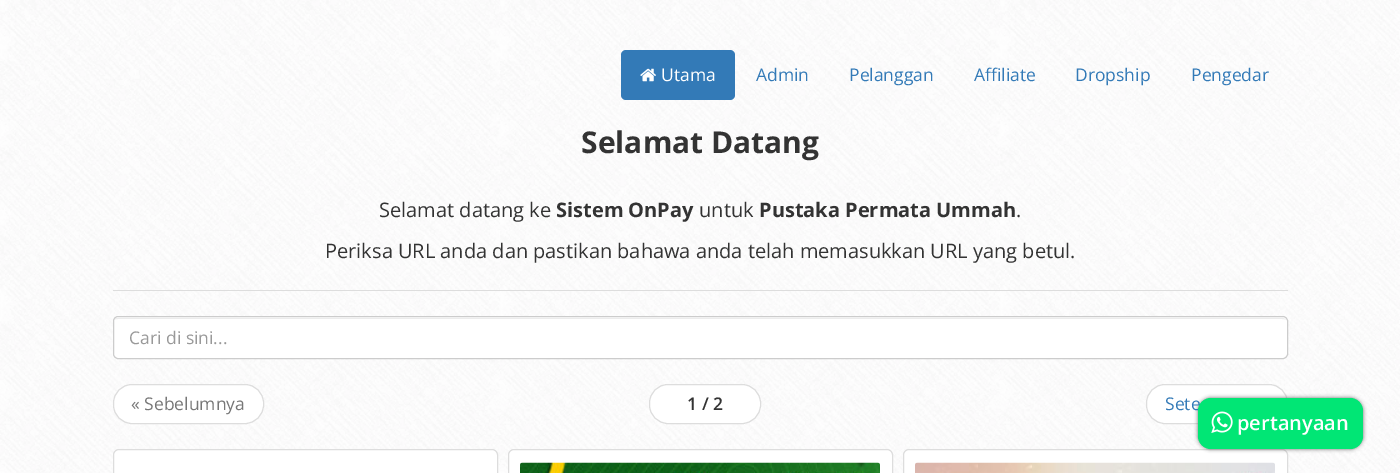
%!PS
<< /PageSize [1400 473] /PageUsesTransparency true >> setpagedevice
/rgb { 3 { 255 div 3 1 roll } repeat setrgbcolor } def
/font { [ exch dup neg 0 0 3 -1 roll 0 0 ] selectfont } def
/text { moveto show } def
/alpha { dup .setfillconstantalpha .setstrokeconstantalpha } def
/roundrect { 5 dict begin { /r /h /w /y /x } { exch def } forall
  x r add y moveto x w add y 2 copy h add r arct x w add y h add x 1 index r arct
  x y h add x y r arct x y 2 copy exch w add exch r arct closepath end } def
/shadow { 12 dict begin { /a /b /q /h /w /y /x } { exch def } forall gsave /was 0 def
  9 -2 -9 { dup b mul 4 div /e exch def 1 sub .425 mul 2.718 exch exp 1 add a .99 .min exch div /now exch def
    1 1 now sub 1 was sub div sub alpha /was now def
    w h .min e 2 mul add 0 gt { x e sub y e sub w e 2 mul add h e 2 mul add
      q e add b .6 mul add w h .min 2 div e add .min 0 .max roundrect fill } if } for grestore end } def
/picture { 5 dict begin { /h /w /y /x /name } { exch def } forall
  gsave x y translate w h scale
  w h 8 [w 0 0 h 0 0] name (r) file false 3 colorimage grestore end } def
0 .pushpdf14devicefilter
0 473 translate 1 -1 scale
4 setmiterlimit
255 255 255 rgb
0 0 1400 473 rectfill
(img_01.rgb) 0 0 1400 473 picture
51 122 183 rgb
621 50 114 50 5 roundrect fill
(img_02.rgb) 640 68 16 14 picture
221 221 221 rgb
113 290 1175 1 rectfill
255 255 255 rgb
113 316 1175 43 5 roundrect fill
236 236 236 rgb
118 319 moveto 1164 0 rlineto 2 0 3 0 4 1 rcurveto -1 -1 -2 -2 -4 -2 rcurveto -1164 0 rlineto -2 0 -3 1 -4 2 rcurveto 1 -1 2 -1 4 -1 rcurveto closepath fill
204 204 204 rgb
113.5 316.5 1174 42 4.5 roundrect stroke
255 255 255 rgb
113.5 384.5 150 39 18.5 roundrect gsave fill grestore
221 221 221 rgb
stroke
255 255 255 rgb
649.5 384.5 111 39 18.5 roundrect gsave fill grestore
221 221 221 rgb
stroke
255 255 255 rgb
1146.5 384.5 141 39 18.5 roundrect gsave fill grestore
221 221 221 rgb
stroke
255 255 255 rgb
113.5 449.5 384 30 5.5 roundrect gsave fill grestore
221 221 221 rgb
stroke
255 255 255 rgb
508.5 449.5 384 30 5.5 roundrect gsave fill grestore
221 221 221 rgb
stroke
(img_03.rgb) 520 462 360 11 picture
255 255 255 rgb
903.5 449.5 384 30 5.5 roundrect gsave fill grestore
221 221 221 rgb
stroke
(img_04.rgb) 915 462 360 11 picture
102 102 102 rgb
1198 398 165 51 13 2 1 shadow
/OpenSans-Regular 17.5 font
255 255 255 rgb
(Utama) 661 81 text
51 122 183 rgb
(Admin) 756 81 text
(Pelanggan) 849 81 text
(Affiliate) 974 81 text
(Dropship) 1075 81 text
(Pengedar) 1191 81 text
/OpenSans-Bold 30 font
51 51 51 rgb
(Selamat Datang) 581 153 text
/OpenSans-Regular 20 font
(Selamat datang ke) 379 217 text
/OpenSans-Bold 20 font
(Sistem OnPay) 556 217 text
/OpenSans-Regular 20 font
(untuk) 699 217 text
/OpenSans-Bold 20 font
(Pustaka Permata Ummah) 759 217 text
/OpenSans-Regular 20 font
(.) 1016 217 text
(Periksa URL anda dan pastikan bahawa anda telah memasukkan URL yang betul.) 325 258 text
/OpenSans-Regular 17.5 font
153 153 153 rgb
(Cari di sini...) 129 344 text
119 119 119 rgb
(« Sebelumnya) 131 410 text
/OpenSans-SemiBold 17.5 font
51 51 51 rgb
(1 / 2) 687 410 text
/OpenSans-Regular 17.5 font
51 122 183 rgb
(Sete) 1165 410 text
1 230 117 rgb
1198 398 165 51 13 roundrect fill
(img_05.rgb) 1211 411 22 22 picture
/OpenSans-SemiBold 20 font
255 255 255 rgb
(pertanyaan) 1237 430 text
.poppdf14devicefilter showpage
